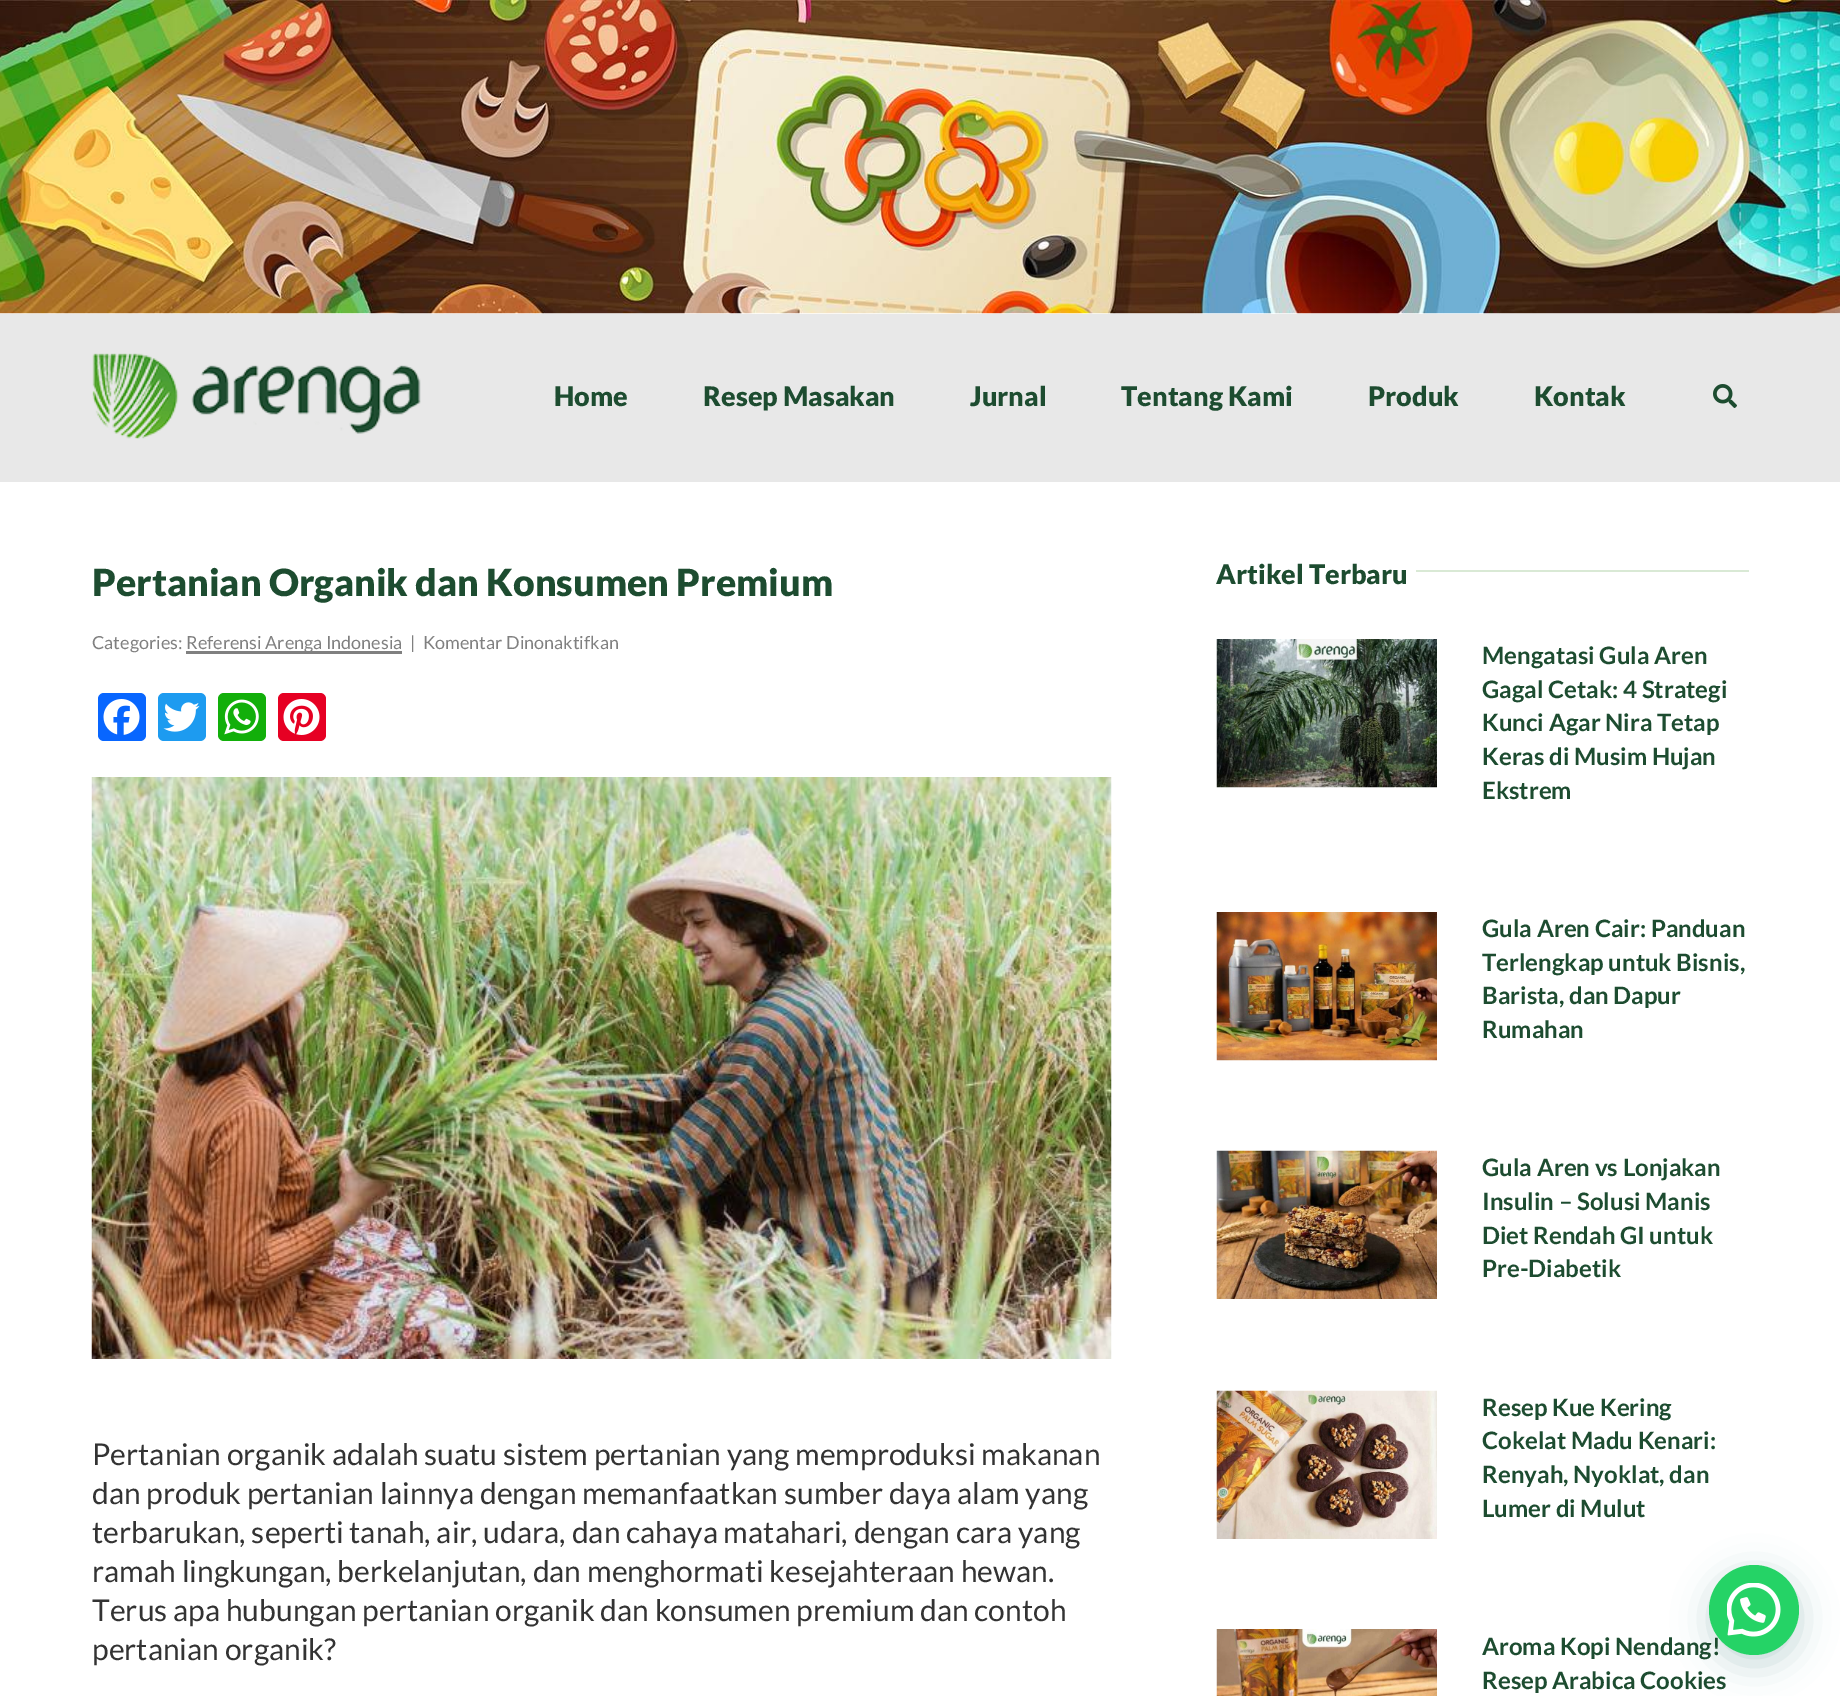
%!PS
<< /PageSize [1840 1696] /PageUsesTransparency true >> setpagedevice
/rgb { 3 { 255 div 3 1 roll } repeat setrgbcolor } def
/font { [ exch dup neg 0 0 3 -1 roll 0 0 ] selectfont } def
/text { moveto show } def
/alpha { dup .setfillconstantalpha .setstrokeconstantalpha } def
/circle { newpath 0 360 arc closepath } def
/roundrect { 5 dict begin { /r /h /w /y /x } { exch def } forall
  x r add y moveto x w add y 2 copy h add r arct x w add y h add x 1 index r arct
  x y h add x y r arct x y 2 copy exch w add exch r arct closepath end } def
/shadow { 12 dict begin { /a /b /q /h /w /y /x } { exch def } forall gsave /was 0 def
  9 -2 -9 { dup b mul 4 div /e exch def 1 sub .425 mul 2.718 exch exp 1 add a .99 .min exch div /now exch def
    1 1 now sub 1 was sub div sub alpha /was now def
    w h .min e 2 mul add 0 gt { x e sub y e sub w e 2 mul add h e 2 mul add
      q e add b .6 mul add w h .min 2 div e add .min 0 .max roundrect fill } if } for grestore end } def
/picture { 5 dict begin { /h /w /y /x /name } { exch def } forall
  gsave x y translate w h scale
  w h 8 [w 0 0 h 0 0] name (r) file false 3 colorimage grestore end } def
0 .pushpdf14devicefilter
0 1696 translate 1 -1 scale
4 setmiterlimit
255 255 255 rgb
0 0 1840 1696 rectfill
(img_01.rgb) 0 0 1840 314 picture
232 232 232 rgb
0 314 1840 168 rectfill
(img_02.rgb) 92 353 329 86 picture
(img_03.rgb) 1713 384 24 24 picture
128 128 128 rgb
186 651 216 3 rectfill
8 102 255 rgb
98 693 48 48 6 roundrect fill
(img_04.rgb) 103 699 37 36 picture
29 155 240 rgb
158 693 48 48 6 roundrect fill
(img_05.rgb) 163 702 37 30 picture
18 175 10 rgb
218 693 48 48 6 roundrect fill
(img_06.rgb) 224 699 35 36 picture
230 0 35 rgb
278 693 48 48 6 roundrect fill
(img_07.rgb) 283 699 37 36 picture
(img_08.rgb) 91 777 1021 582 picture
217 233 213 rgb
1416 570 333 2 rectfill
(img_09.rgb) 1216 639 221 149 picture
(img_10.rgb) 1216 912 221 149 picture
(img_11.rgb) 1216 1150 221 149 picture
(img_12.rgb) 1216 1390 221 149 picture
(img_13.rgb) 1216 1629 221 67 picture
7 94 84 rgb
1710 1574 90 90 45 18 0.24 shadow
/Lato-Black 27 font
29 76 48 rgb
(Home) 554 406 text
(Resep Masakan) 703 406 text
(Jurnal) 970 406 text
(Tentang Kami) 1121 406 text
(Produk) 1368 406 text
(Kontak) 1534 406 text
/Lato-Black 37.5 font
(Pertanian Organik dan Konsumen Premium) 92 596 text
/Lato-Regular 18 font
128 128 128 rgb
(Categories:) 92 649 text
(Referensi Arenga Indonesia) 186 649 text
(|) 410 649 text
(Komentar Dinonaktifkan) 423 649 text
/Lato-Regular 30 font
51 51 51 rgb
(Pertanian organik adalah suatu sistem pertanian yang memproduksi makanan) 92 1465 text
(dan produk pertanian lainnya dengan memanfaatkan sumber daya alam yang) 92 1504 text
(terbarukan, seperti tanah, air, udara, dan cahaya matahari, dengan cara yang) 92 1543 text
(ramah lingkungan, berkelanjutan, dan menghormati kesejahteraan hewan.) 92 1582 text
(Terus apa hubungan pertanian organik dan konsumen premium dan contoh) 92 1621 text
(pertanian organik?) 92 1660 text
/Lato-Black 27 font
29 76 48 rgb
(Artikel Terbaru) 1216 584 text
/Lato-Bold 24 font
(Mengatasi Gula Aren) 1482 664 text
(Gagal Cetak: 4 Strategi) 1482 698 text
(Kunci Agar Nira Tetap) 1482 731 text
(Keras di Musim Hujan) 1482 765 text
(Ekstrem) 1482 799 text
(Gula Aren Cair: Panduan) 1482 937 text
(Terlengkap untuk Bisnis,) 1482 971 text
(Barista, dan Dapur) 1482 1004 text
(Rumahan) 1482 1038 text
(Gula Aren vs Lonjakan) 1482 1176 text
(Insulin – Solusi Manis) 1482 1210 text
(Diet Rendah GI untuk) 1482 1244 text
(Pre-Diabetik) 1482 1277 text
(Resep Kue Kering) 1482 1416 text
(Cokelat Madu Kenari:) 1482 1449 text
(Renyah, Nyoklat, dan) 1482 1483 text
(Lumer di Mulut) 1482 1517 text
(Aroma Kopi Nendang!) 1482 1655 text
(Resep Arabica Cookies) 1482 1689 text
37 211 102 rgb
1754 1610 45 circle fill
(img_14.rgb) 1727 1583 54 54 picture
.poppdf14devicefilter showpage
